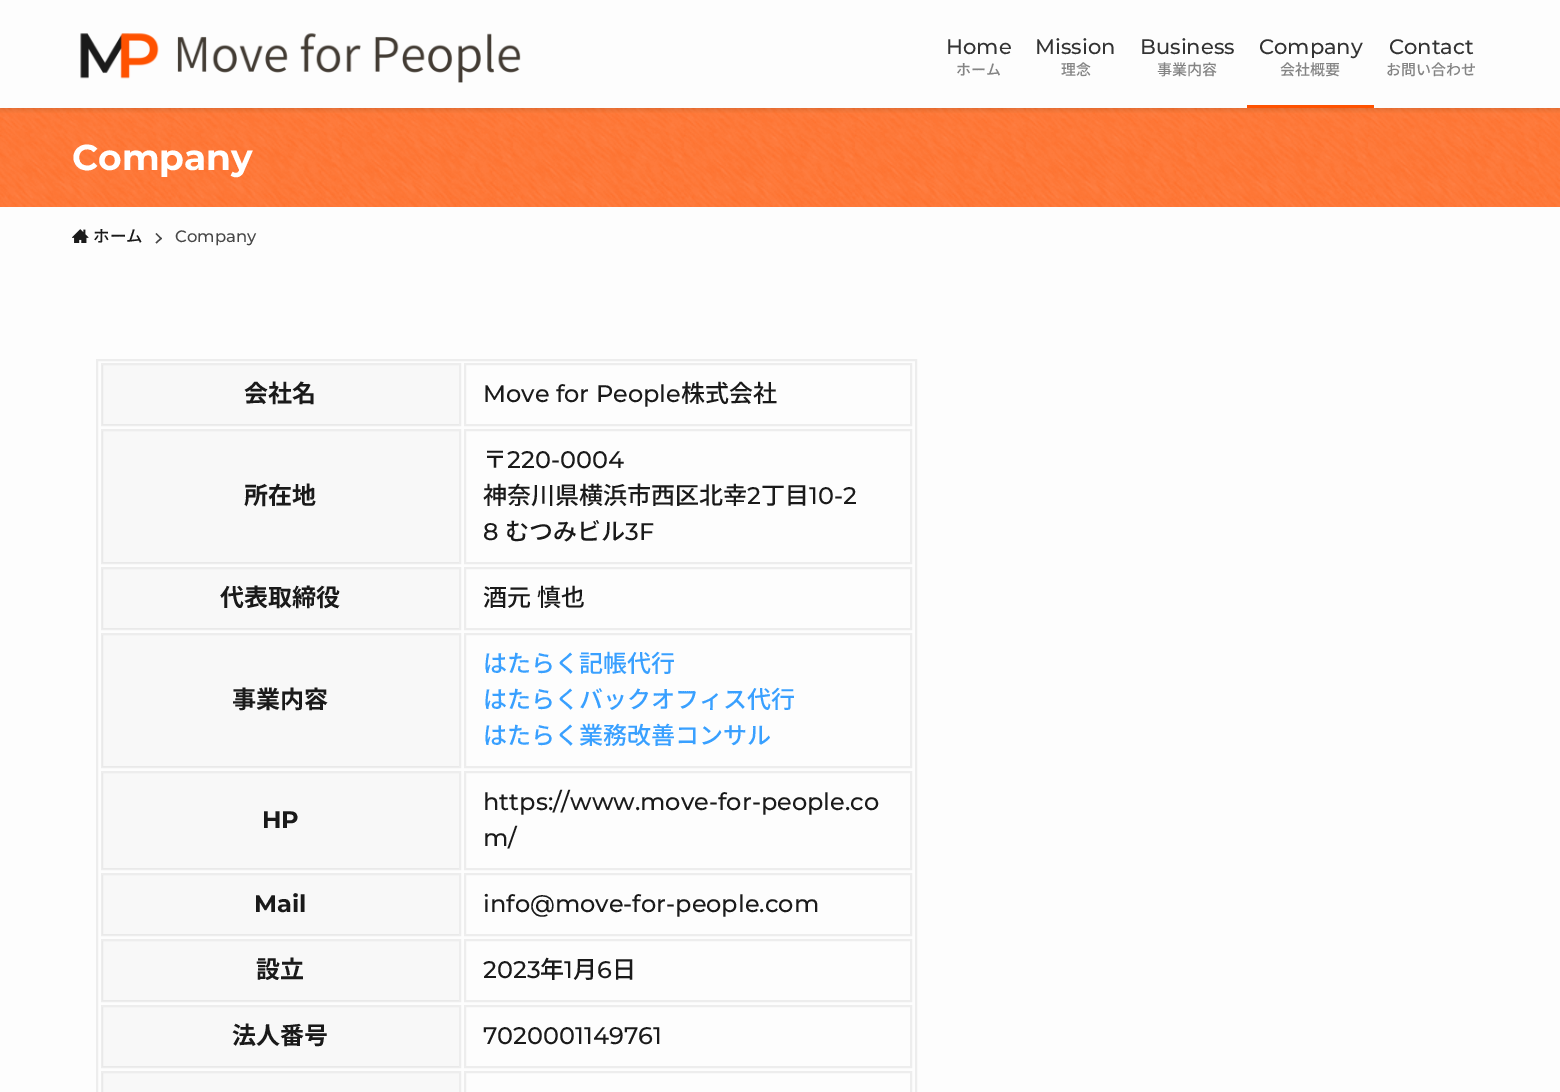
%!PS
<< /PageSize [1560 1092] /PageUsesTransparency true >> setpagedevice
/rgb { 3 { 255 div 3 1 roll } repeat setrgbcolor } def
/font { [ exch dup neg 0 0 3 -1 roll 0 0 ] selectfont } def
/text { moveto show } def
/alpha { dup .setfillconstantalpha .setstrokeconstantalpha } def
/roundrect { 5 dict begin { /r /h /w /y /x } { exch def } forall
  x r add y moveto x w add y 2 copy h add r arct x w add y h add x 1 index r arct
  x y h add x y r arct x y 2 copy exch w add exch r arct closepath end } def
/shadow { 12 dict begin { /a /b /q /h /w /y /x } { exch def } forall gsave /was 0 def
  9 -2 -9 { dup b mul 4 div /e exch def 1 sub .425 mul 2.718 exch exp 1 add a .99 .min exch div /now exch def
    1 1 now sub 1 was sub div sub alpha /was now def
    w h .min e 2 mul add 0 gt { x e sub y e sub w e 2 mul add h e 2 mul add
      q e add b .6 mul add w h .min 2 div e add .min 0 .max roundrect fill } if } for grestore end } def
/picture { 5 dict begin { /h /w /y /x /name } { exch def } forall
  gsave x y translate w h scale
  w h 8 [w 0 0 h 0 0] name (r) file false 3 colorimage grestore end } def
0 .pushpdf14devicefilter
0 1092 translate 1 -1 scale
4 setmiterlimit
253 253 253 rgb
0 0 1560 1092 rectfill
255 82 0 rgb
0 108 1560 99 rectfill
(img_02.rgb) 0 108 1560 99 picture
gsave
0 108 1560 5 rectclip
0 0 0 rgb
0 2 1560 108 0 3 0.12 shadow
grestore
(img_01.rgb) 80 33 441 50 picture
1247 105 127 3 rectfill
(img_03.rgb) 72 229 17 14 picture
71 71 71 rgb
156.5 233 moveto 5.5 5.5 rlineto -1 1 rlineto -5.5 -5.5 rlineto closepath fill
161 237.5 moveto 1 1 rlineto -5.5 5 rlineto -1 -1 rlineto closepath fill
237 237 237 rgb
2 setlinewidth
97 360 819 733 rectstroke
102 364 358 61 rectstroke
0.05 alpha
150 150 150 rgb
102 365 357 60 rectfill
1 alpha
237 237 237 rgb
465 364 446 61 rectstroke
102 430 358 133 rectstroke
0.05 alpha
150 150 150 rgb
102 431 357 132 rectfill
1 alpha
237 237 237 rgb
465 430 446 133 rectstroke
102 568 358 61 rectstroke
0.05 alpha
150 150 150 rgb
102 569 357 60 rectfill
1 alpha
237 237 237 rgb
465 568 446 61 rectstroke
102 634 358 133 rectstroke
0.05 alpha
150 150 150 rgb
102 635 357 132 rectfill
1 alpha
237 237 237 rgb
465 634 446 133 rectstroke
102 772 358 97 rectstroke
0.05 alpha
150 150 150 rgb
102 773 357 96 rectfill
1 alpha
237 237 237 rgb
465 772 446 97 rectstroke
102 874 358 61 rectstroke
0.05 alpha
150 150 150 rgb
102 875 357 60 rectfill
1 alpha
237 237 237 rgb
465 874 446 61 rectstroke
102 940 358 61 rectstroke
0.05 alpha
150 150 150 rgb
102 941 357 60 rectfill
1 alpha
237 237 237 rgb
465 940 446 61 rectstroke
102 1006 358 61 rectstroke
0.05 alpha
150 150 150 rgb
102 1007 357 60 rectfill
1 alpha
237 237 237 rgb
465 1006 446 61 rectstroke
102 1072 358 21 rectstroke
0.05 alpha
150 150 150 rgb
102 1073 357 19 rectfill
1 alpha
237 237 237 rgb
465 1072 446 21 rectstroke
/Montserrat-Medium 21 font
51 51 51 rgb
(Home) 946 54 text
/NotoSansJP-Medium 15 font
132 132 132 rgb
(ホーム) 956 75 text
/Montserrat-Medium 21 font
51 51 51 rgb
(Mission) 1035 54 text
/NotoSansJP-Medium 15 font
132 132 132 rgb
(理念) 1061 75 text
/Montserrat-Medium 21 font
51 51 51 rgb
(Business) 1140 54 text
/NotoSansJP-Medium 15 font
132 132 132 rgb
(事業内容) 1157 75 text
/Montserrat-Medium 21 font
51 51 51 rgb
(Company) 1259 54 text
/NotoSansJP-Medium 15 font
132 132 132 rgb
(会社概要) 1280 75 text
/Montserrat-Medium 21 font
51 51 51 rgb
(Contact) 1389 54 text
/NotoSansJP-Medium 15 font
132 132 132 rgb
(お問い合わせ) 1386 75 text
/Montserrat-Bold 36 font
255 255 255 rgb
(Company) 72 170 text
/NotoSansJP-Medium 16.5 font
26 26 26 rgb
(ホーム) 93 242 text
/Montserrat-Medium 16.5 font
71 71 71 rgb
(Company) 175 242 text
/NotoSansJP-Bold 24 font
26 26 26 rgb
(会社名) 244 402 text
/Montserrat-Medium 24 font
(Move for People) 483 402 text
/NotoSansJP-Medium 24 font
(株式会社) 681 402 text
/NotoSansJP-Bold 24 font
(所在地) 244 504 text
/NotoSansJP-Medium 24 font
(〒) 483 468 text
/Montserrat-Medium 24 font
(220-0004) 507 468 text
/NotoSansJP-Medium 24 font
(神奈川県横浜市西区北幸) 483 504 text
/Montserrat-Medium 24 font
(2) 747 504 text
/NotoSansJP-Medium 24 font
(丁目) 761 504 text
/Montserrat-Medium 24 font
(10-2) 809 504 text
(8) 483 540 text
/NotoSansJP-Medium 24 font
(むつみビル) 505 540 text
/Montserrat-Medium 24 font
(3F) 625 540 text
/NotoSansJP-Bold 24 font
(代表取締役) 220 606 text
/NotoSansJP-Medium 24 font
483 606 moveto 1 0 32 (酒元 慎也) widthshow
/NotoSansJP-Bold 24 font
(事業内容) 232 708 text
/NotoSansJP-Medium 24 font
57 160 255 rgb
(はたらく記帳代行) 483 672 text
(はたらくバックオフィス代行) 483 708 text
(はたらく業務改善コンサル) 483 744 text
/Montserrat-Bold 24 font
26 26 26 rgb
(HP) 262 828 text
/Montserrat-Medium 24 font
(https://www.move-for-people.co) 483 810 text
(m/) 483 846 text
/Montserrat-Bold 24 font
(Mail) 254 912 text
/Montserrat-Medium 24 font
(info@move-for-people.com) 483 912 text
/NotoSansJP-Bold 24 font
(設立) 256 978 text
/Montserrat-Medium 24 font
(2023) 483 978 text
/NotoSansJP-Medium 24 font
(年) 540 978 text
/Montserrat-Medium 24 font
(1) 564 978 text
/NotoSansJP-Medium 24 font
(月) 573 978 text
/Montserrat-Medium 24 font
(6) 597 978 text
/NotoSansJP-Medium 24 font
(日) 612 978 text
/NotoSansJP-Bold 24 font
(法人番号) 232 1044 text
/Montserrat-Medium 24 font
(7020001149761) 483 1044 text
.poppdf14devicefilter showpage
